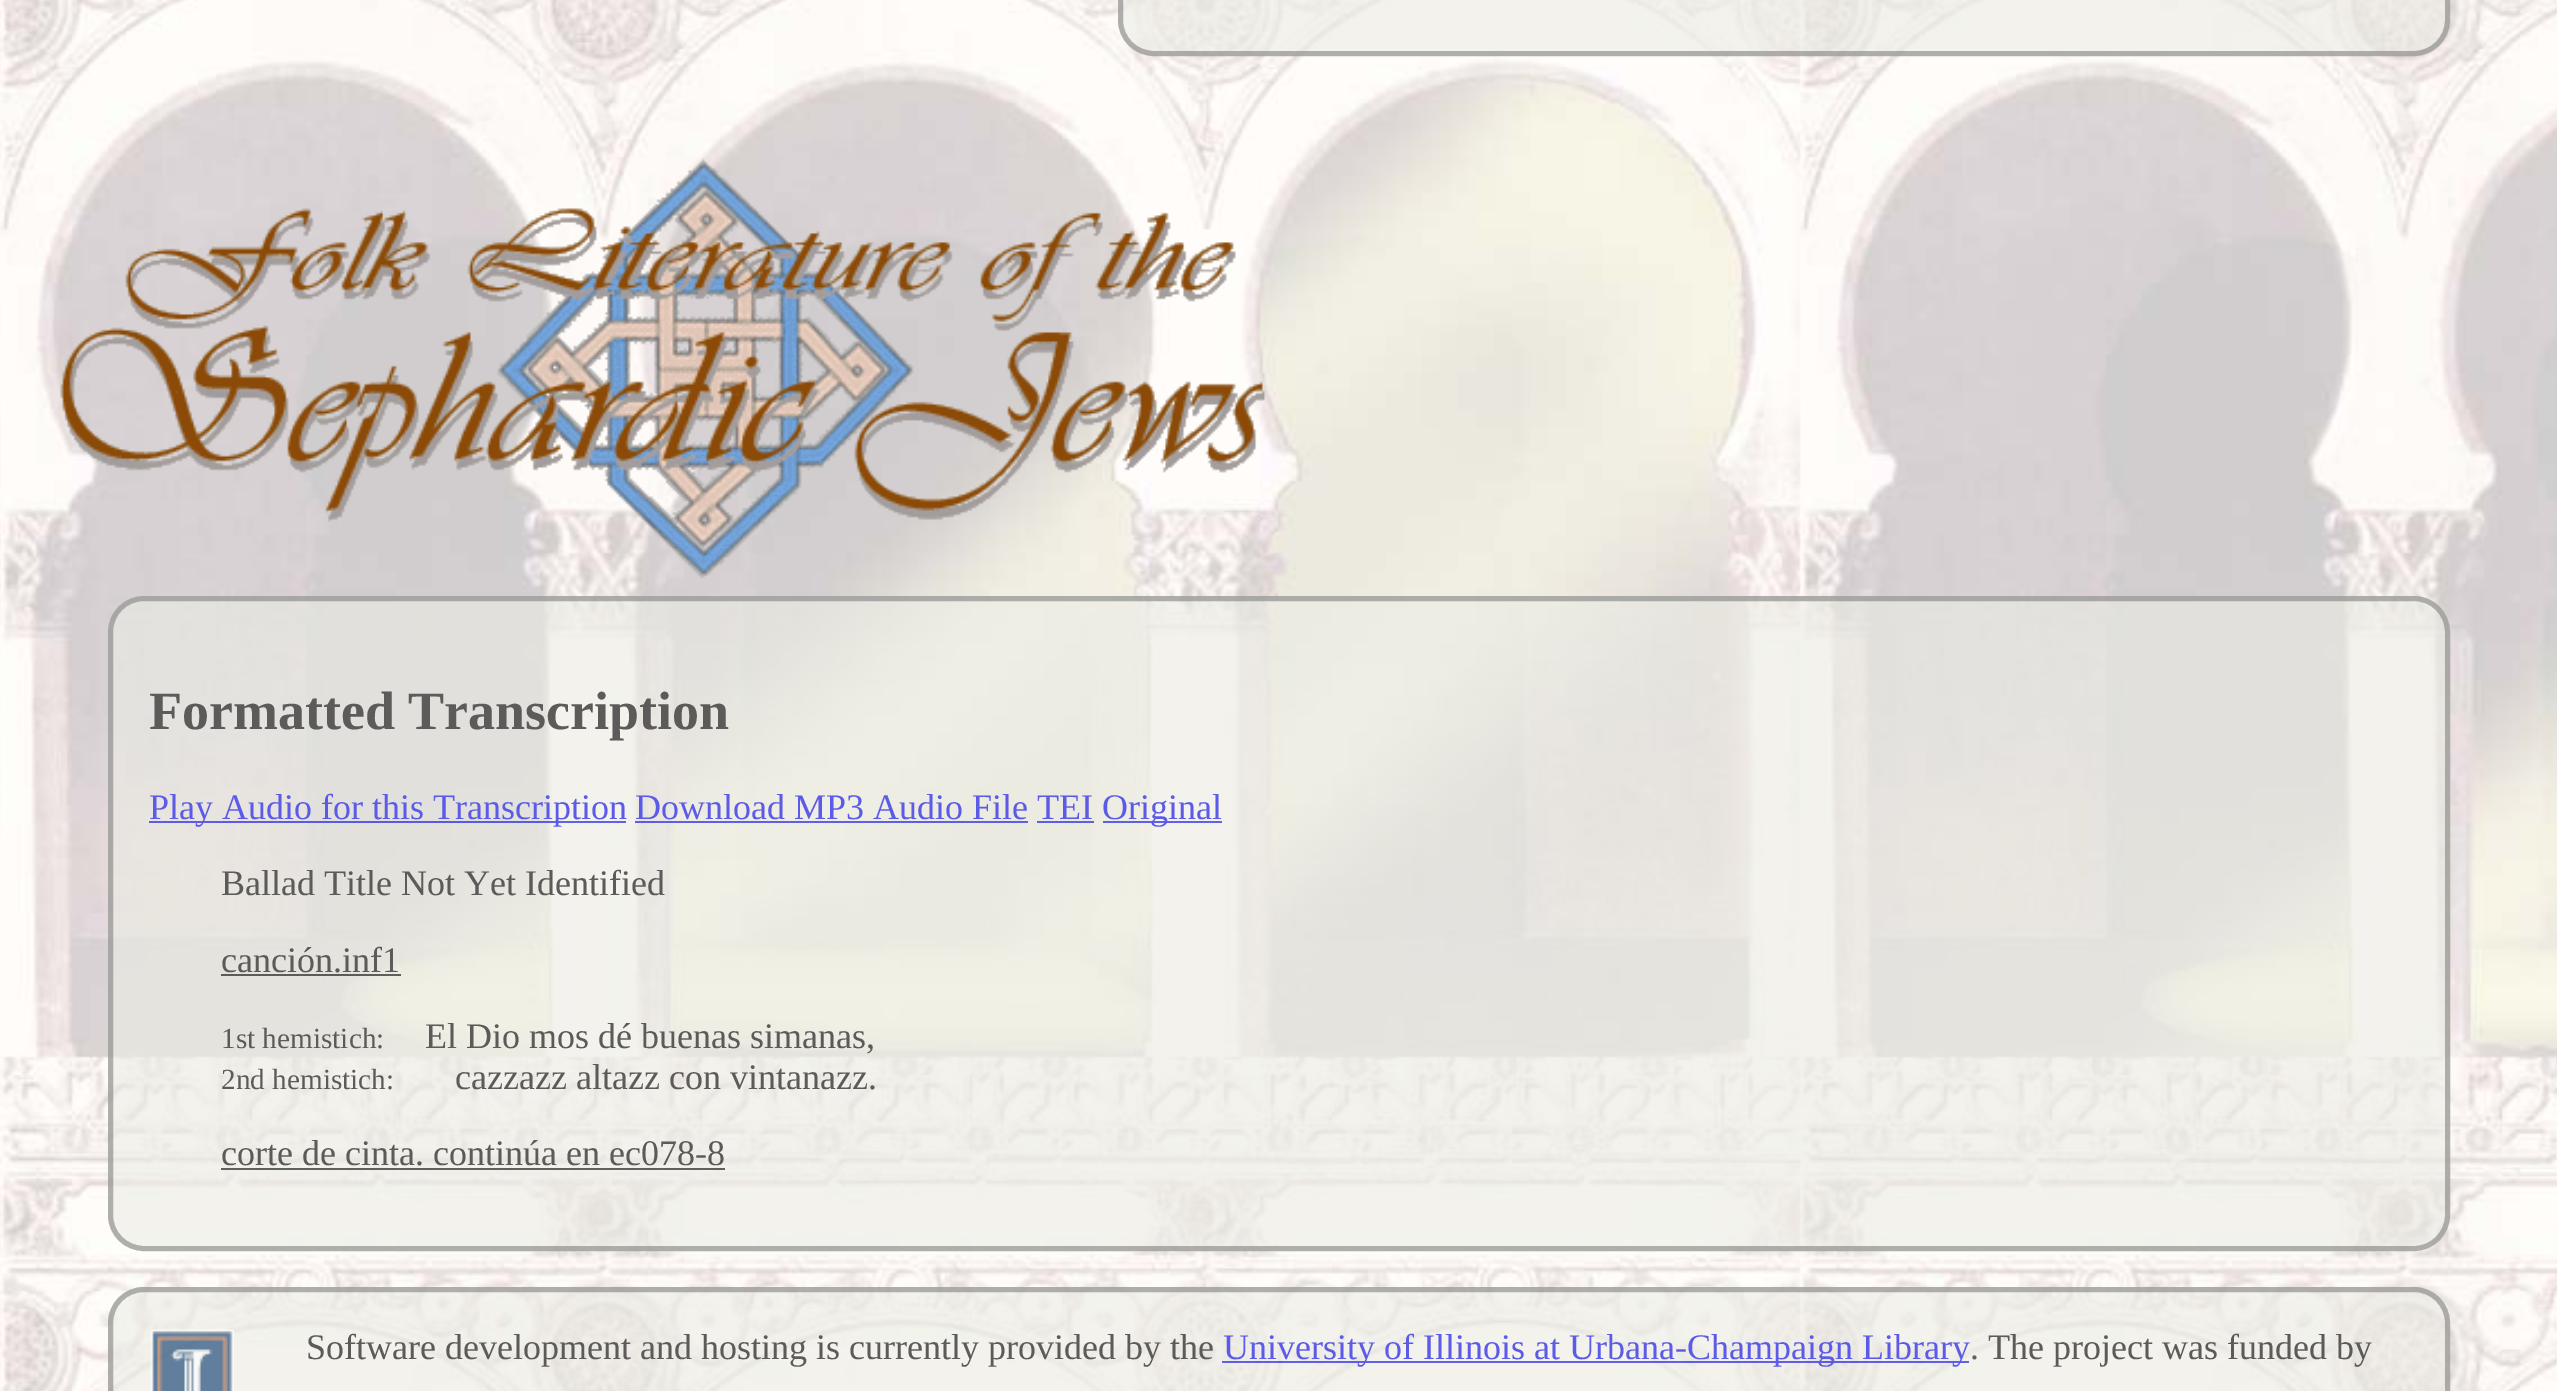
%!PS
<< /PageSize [2557 1391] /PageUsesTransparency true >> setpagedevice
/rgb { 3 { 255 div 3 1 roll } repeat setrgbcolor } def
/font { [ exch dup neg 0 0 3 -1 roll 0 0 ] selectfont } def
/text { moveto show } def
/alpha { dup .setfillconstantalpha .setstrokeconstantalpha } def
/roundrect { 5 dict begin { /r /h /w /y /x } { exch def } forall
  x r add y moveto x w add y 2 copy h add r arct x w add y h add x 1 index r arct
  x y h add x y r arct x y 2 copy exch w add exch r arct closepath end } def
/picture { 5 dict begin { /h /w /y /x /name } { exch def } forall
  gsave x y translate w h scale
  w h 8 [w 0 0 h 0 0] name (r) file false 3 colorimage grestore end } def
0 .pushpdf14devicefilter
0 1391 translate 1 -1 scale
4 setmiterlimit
255 255 255 rgb
0 0 2557 1391 rectfill
(img_01.rgb) 0 0 2557 1391 picture
0.6 alpha
235 236 228 rgb
1118 -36 1332 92 36 roundrect fill
128 128 128 rgb
5 setlinewidth
1120.5 -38.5 1327 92 33.5 roundrect stroke
1 alpha
(img_02.rgb) 60 158 1206 421 picture
0.6 alpha
235 236 228 rgb
108 596 2342 655 36 roundrect fill
128 128 128 rgb
110.5 598.5 2337 650 33.5 roundrect stroke
0 0 238 rgb
149 821 477 2 rectfill
635 821 393 2 rectfill
1 alpha
94 94 233 rgb
1037 821 57 2 rectfill
0.6 alpha
0 0 238 rgb
1103 821 119 2 rectfill
0 0 0 rgb
221 974 180 2 rectfill
221 1168 504 2 rectfill
235 236 228 rgb
108 1287 2342 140 36 roundrect fill
128 128 128 rgb
110.5 1289.5 2337 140 33.5 roundrect stroke
1 alpha
(img_03.rgb) 150 1329 84 62 picture
0.6 alpha
0 0 238 rgb
1222 1361 747 2 rectfill
/LiberationSerif-Bold 54 font
1 alpha
92 91 90 rgb
(Formatted Transcription) 149 729 text
/LiberationSerif-Regular 36 font
92 91 232 rgb
(Play Audio for this Transcription) 149 819 text
(Download MP3 Audio File) 635 819 text
(TEI) 1037 819 text
(Original) 1102 819 text
92 91 90 rgb
(Ballad Title Not Yet Identified) 221 895 text
(canción.inf1) 221 972 text
/LiberationSerif-Regular 29.25 font
(1st hemistich:) 221 1048 text
/LiberationSerif-Regular 36 font
(El Dio mos dé buenas simanas,) 425 1048 text
/LiberationSerif-Regular 29.25 font
(2nd hemistich:) 221 1089 text
/LiberationSerif-Regular 36 font
(cazzazz altazz con vintanazz.) 455 1089 text
(corte de cinta. continúa en ec078-8) 221 1165 text
(Software development and hosting is currently provided by the) 306 1359 text
92 91 232 rgb
(University of Illinois at Urbana-Champaign Library) 1223 1359 text
97 97 95 rgb
(.) 1970 1359 text
92 91 90 rgb
(The project was funded by) 1988 1359 text
.poppdf14devicefilter showpage
